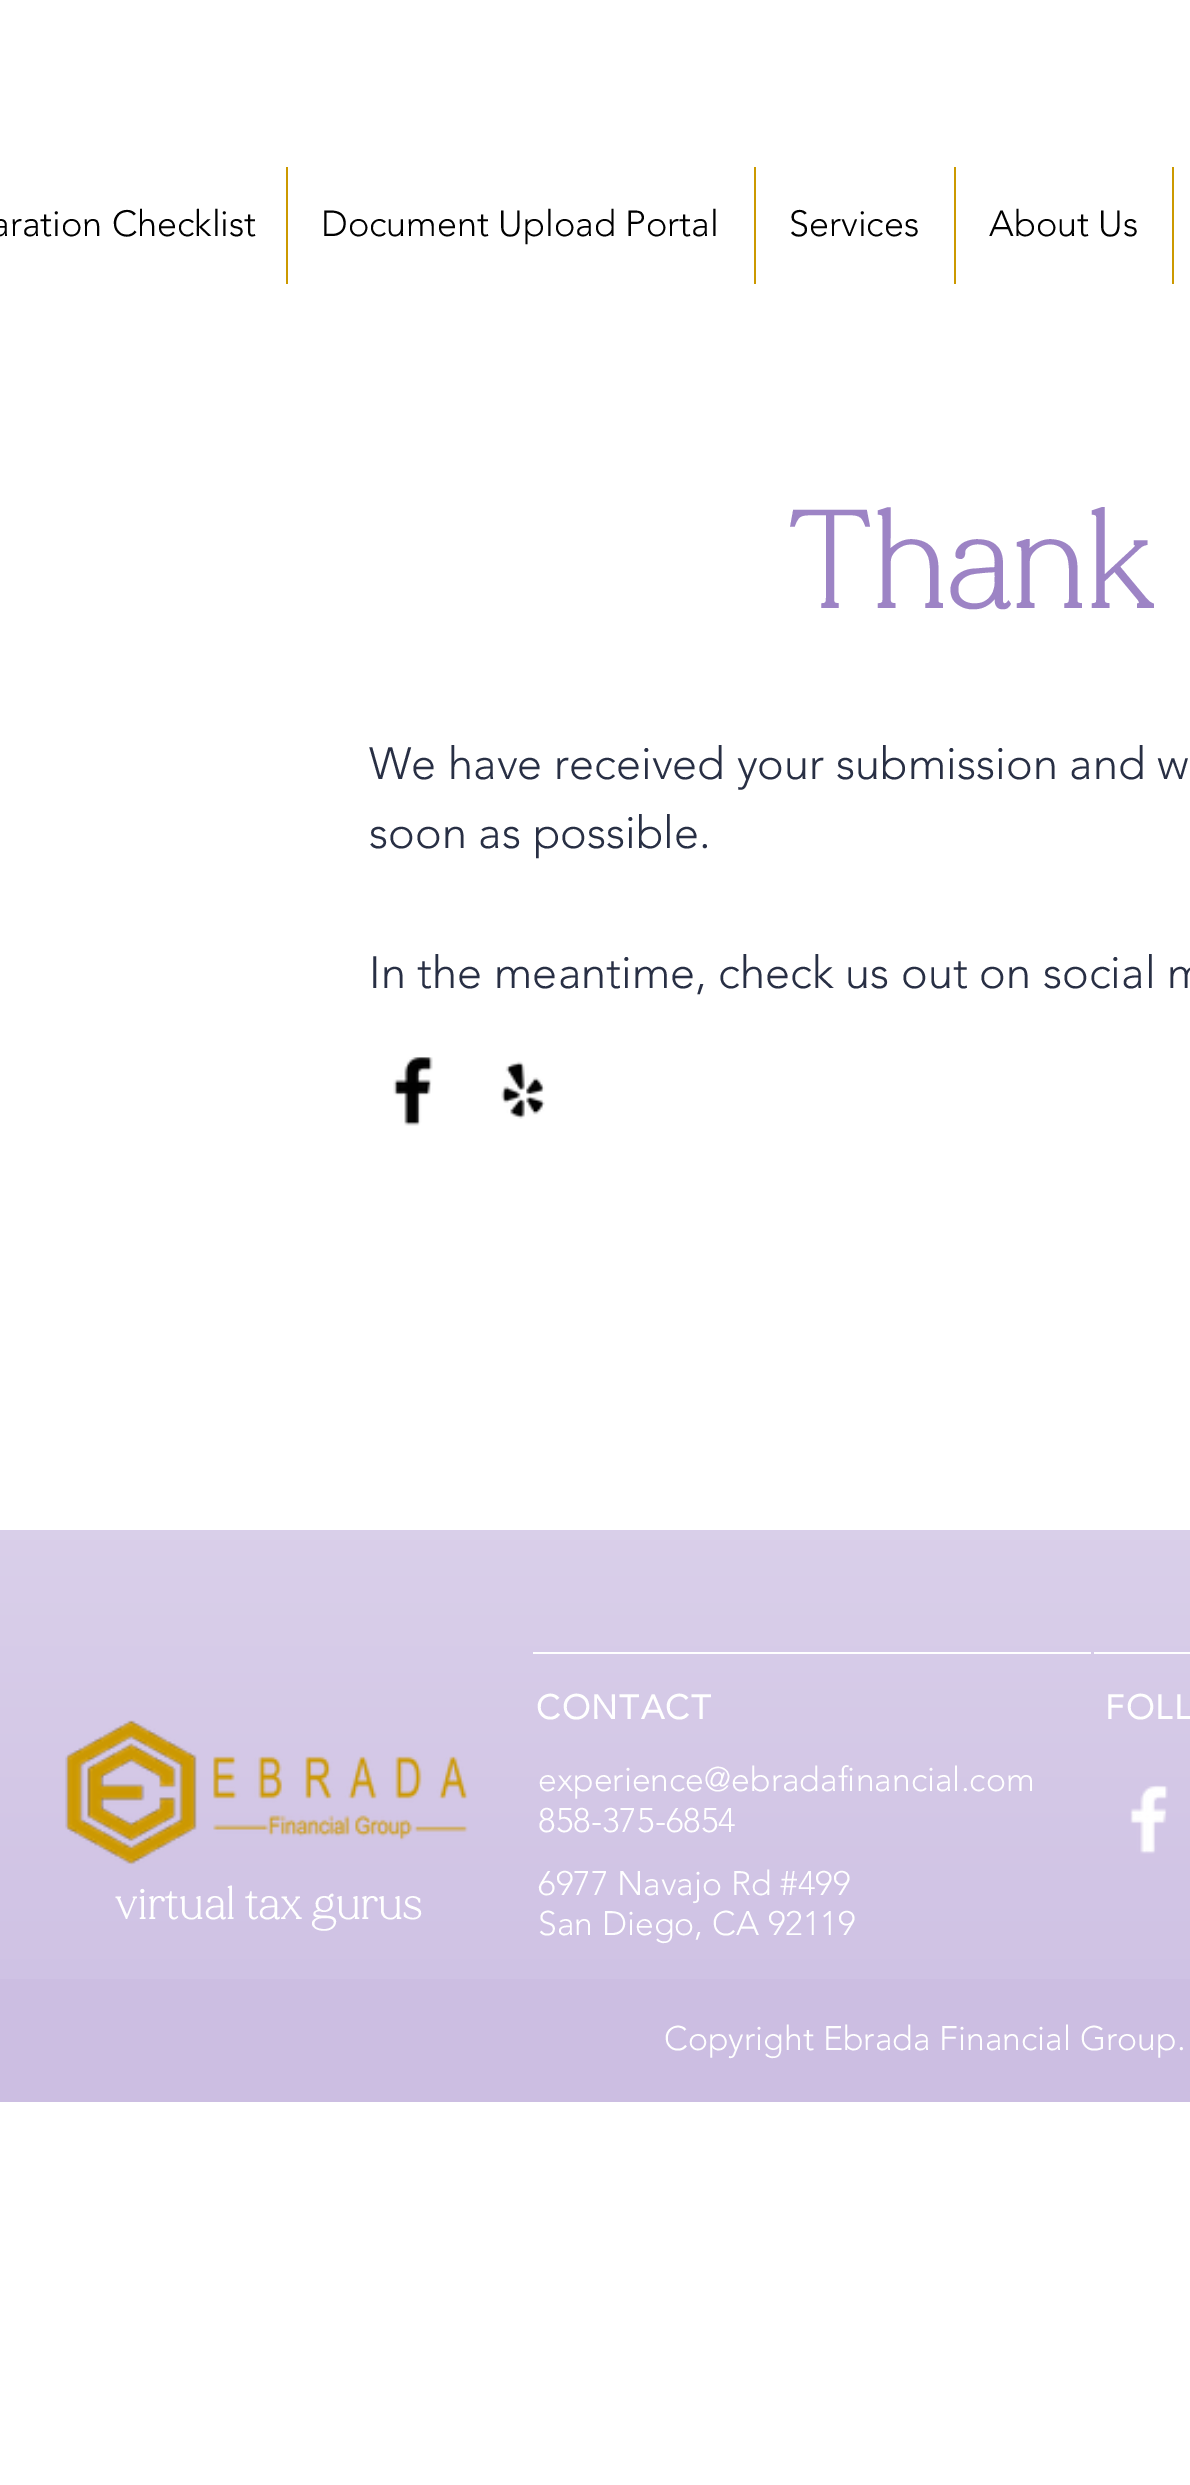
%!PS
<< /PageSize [1190 2485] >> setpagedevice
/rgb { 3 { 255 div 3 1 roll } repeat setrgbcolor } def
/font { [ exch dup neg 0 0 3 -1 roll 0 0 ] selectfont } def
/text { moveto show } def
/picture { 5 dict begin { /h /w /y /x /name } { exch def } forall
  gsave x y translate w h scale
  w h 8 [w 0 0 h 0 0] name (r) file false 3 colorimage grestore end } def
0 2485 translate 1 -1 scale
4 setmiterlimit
255 255 255 rgb
0 0 1190 2485 rectfill
204 153 0 rgb
286 167 2 117 rectfill
754 167 2 117 rectfill
954 167 2 117 rectfill
1172 167 2 117 rectfill
(img_01.rgb) 393 1057 40 69 picture
(img_02.rgb) 501 1061 44 58 picture
204 190 226 rgb
0 1530 1190 572 rectfill
(img_03.rgb) 0 1530 1190 449 picture
255 255 255 rgb
533 1652 558 2 rectfill
1094 1652 96 2 rectfill
(img_04.rgb) 1130 1785 38 69 picture
(img_05.rgb) 65 1720 403 145 picture
/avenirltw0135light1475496-Light 36 font
0 0 0 rgb
(aration Checklist) -9 236 text
(Document Upload Portal) 321 236 text
(Services) 789 236 text
(About Us) 989 236 text
/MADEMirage-Bold 135 font
157 132 197 rgb
(Thank) 785 608 text
/avenirltw0135light1475496-Light 45 font
40 47 68 rgb
(We have received your submission and w) 369 779 text
(soon as possible.) 369 848 text
(In the meantime, check us out on social m) 369 988 text
/avenirltw0135light1475496-Bold 33.75 font
255 255 255 rgb
536 1719 moveto 1.75 0 (CONTACT) ashow
/avenirltw0135light1475496-Light 33.75 font
(experience@ebradafinancial.com) 538 1791 text
(858-375-6854) 538 1832 text
(6977 Navajo Rd #499) 538 1895 text
(San Diego, CA 92119) 538 1935 text
/avenirltw0135light1475496-Bold 33.75 font
1105 1719 moveto 1.75 0 (FOLL) ashow
/MADEMirage-Bold 45 font
(virtual tax gurus) 115 1919 text
/avenirltw0135light1475496-Light 33.75 font
(Copyright Ebrada Financial Group.) 664 2050 text
showpage
